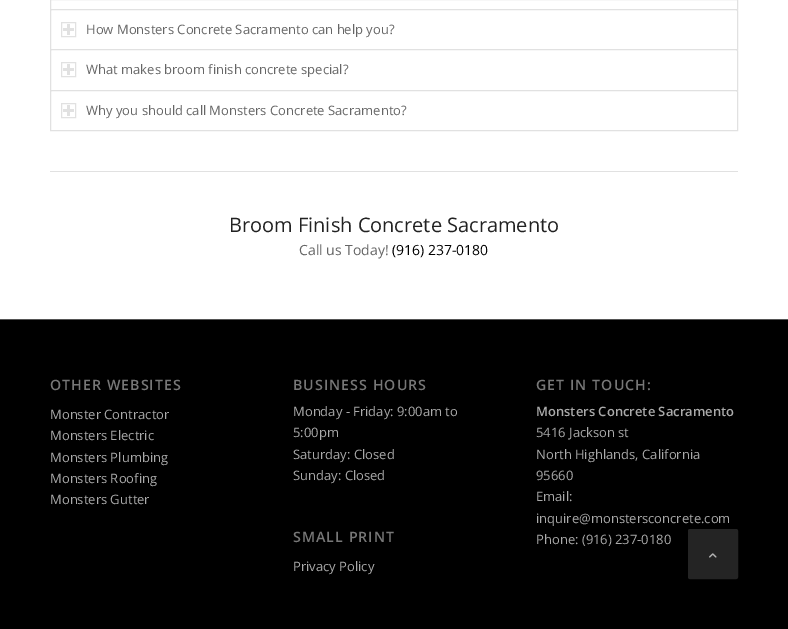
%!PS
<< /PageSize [788 629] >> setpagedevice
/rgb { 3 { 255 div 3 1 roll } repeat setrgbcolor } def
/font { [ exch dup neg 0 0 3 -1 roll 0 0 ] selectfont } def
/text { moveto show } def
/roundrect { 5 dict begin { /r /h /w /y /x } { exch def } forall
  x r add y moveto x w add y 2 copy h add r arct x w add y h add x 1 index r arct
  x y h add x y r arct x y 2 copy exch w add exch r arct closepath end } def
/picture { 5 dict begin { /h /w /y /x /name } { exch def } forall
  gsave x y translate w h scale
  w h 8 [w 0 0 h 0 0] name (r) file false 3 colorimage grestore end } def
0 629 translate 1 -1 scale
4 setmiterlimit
255 255 255 rgb
0 0 788 629 rectfill
225 225 225 rgb
50.5 -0.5 687 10 rectstroke
255 255 255 rgb
52 9.5 moveto 684 0 rlineto 1 0 1.5 0.5 1.5 1.5 rcurveto 0 38.5 rlineto -687 0 rlineto 0 -38.5 rlineto 0 -1 0.5 -1.5 1.5 -1.5 rcurveto closepath gsave fill grestore
225 225 225 rgb
stroke
61.5 22.5 14 14 rectstroke
67 24 3 11 rectfill
63 28 11 3 rectfill
255 255 255 rgb
52 49.5 moveto 684 0 rlineto 1 0 1.5 0.5 1.5 1.5 rcurveto 0 39.5 rlineto -687 0 rlineto 0 -39.5 rlineto 0 -1 0.5 -1.5 1.5 -1.5 rcurveto closepath gsave fill grestore
225 225 225 rgb
stroke
61.5 62.5 14 14 rectstroke
67 64 3 11 rectfill
63 68 11 3 rectfill
255 255 255 rgb
52 90.5 moveto 684 0 rlineto 1 0 1.5 0.5 1.5 1.5 rcurveto 0 38.5 rlineto -687 0 rlineto 0 -38.5 rlineto 0 -1 0.5 -1.5 1.5 -1.5 rcurveto closepath gsave fill grestore
225 225 225 rgb
stroke
61.5 103.5 14 14 rectstroke
67 105 3 11 rectfill
63 109 11 3 rectfill
50 171 688 1 rectfill
0 0 0 rgb
0 320 788 309 rectfill
85 85 85 rgb
0 319 788 1 rectfill
36 36 36 rgb
688.5 529.5 49 49 1.5 roundrect gsave fill grestore
stroke
(img_01.rgb) 709 553 8 5 picture
/OpenSans-Regular 13 font
102 102 102 rgb
(How Monsters Concrete Sacramento can help you?) 86 34 text
(What makes broom finish concrete special?) 86 74 text
(Why you should call Monsters Concrete Sacramento?) 86 115 text
/OpenSans-Regular 20 font
34 34 34 rgb
(Broom Finish Concrete Sacramento) 229 232 text
/OpenSans-Regular 14 font
102 102 102 rgb
(Call us Today!) 299 255 text
0 0 0 rgb
(\(916\) 237-0180) 392 255 text
/OpenSans-SemiBold 14.25 font
119 119 119 rgb
50 390 moveto 1 0 (OTHER WEBSITES) ashow
/OpenSans-Regular 13 font
170 170 170 rgb
(Monster Contractor) 50 419 text
(Monsters Electric) 50 440 text
(Monsters Plumbing) 50 462 text
(Monsters Roofing) 50 483 text
(Monsters Gutter) 50 504 text
/OpenSans-SemiBold 14.25 font
119 119 119 rgb
293 390 moveto 1 0 (BUSINESS HOURS) ashow
/OpenSans-Regular 13 font
170 170 170 rgb
(Monday - Friday: 9:00am to) 293 416 text
(5:00pm) 293 437 text
(Saturday: Closed) 293 459 text
(Sunday: Closed) 293 480 text
/OpenSans-SemiBold 14.25 font
119 119 119 rgb
293 542 moveto 1 0 (SMALL PRINT) ashow
/OpenSans-Regular 13 font
170 170 170 rgb
(Privacy Policy) 293 571 text
/OpenSans-SemiBold 14.25 font
119 119 119 rgb
536 390 moveto 1 0 (GET IN TOUCH:) ashow
/OpenSans-SemiBold 13 font
170 170 170 rgb
(Monsters Concrete Sacramento) 536 416 text
/OpenSans-Regular 13 font
(5416 Jackson st) 536 437 text
(North Highlands, California) 536 459 text
(95660) 536 480 text
(Email:) 536 501 text
(inquire@monstersconcrete.com) 536 523 text
(Phone: \(916\) 237-0180) 536 544 text
showpage
